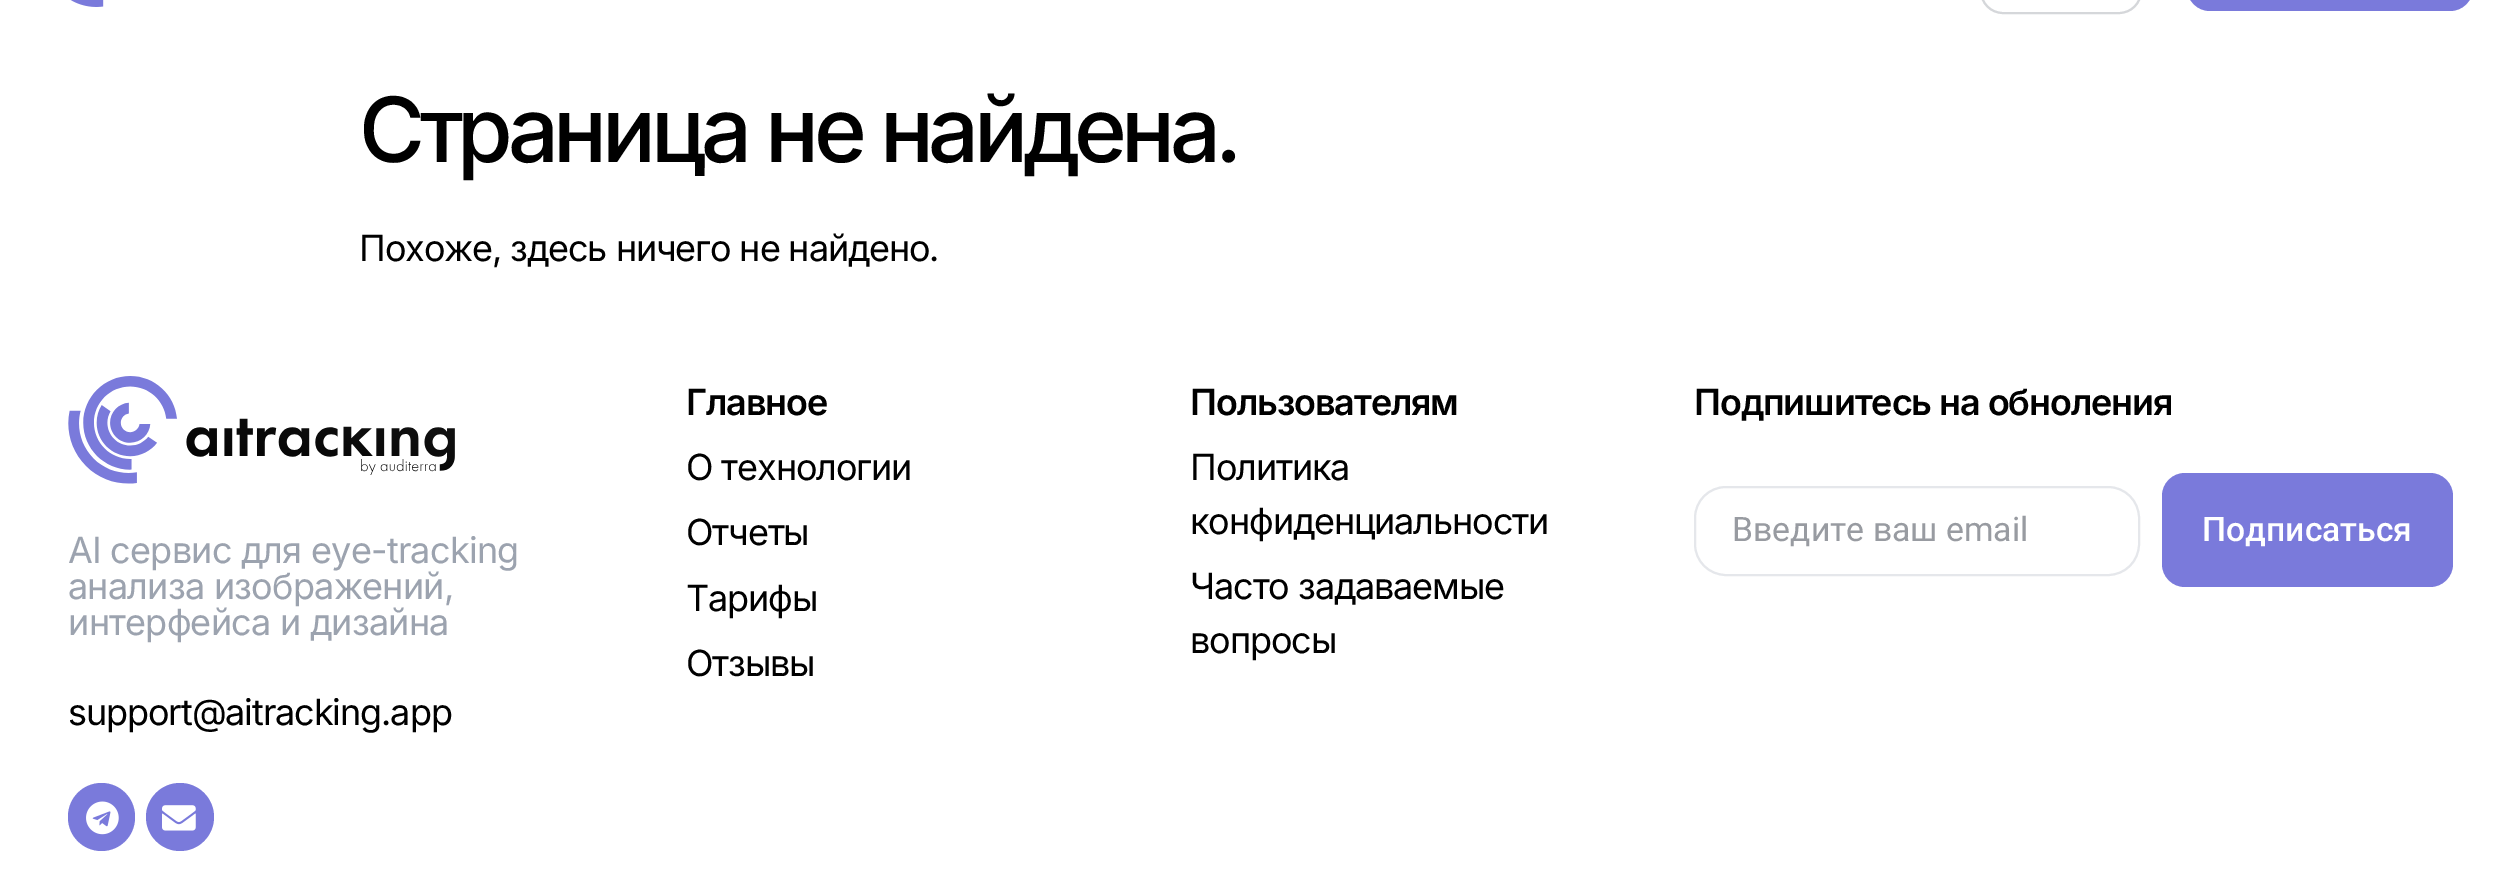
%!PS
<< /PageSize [2516 888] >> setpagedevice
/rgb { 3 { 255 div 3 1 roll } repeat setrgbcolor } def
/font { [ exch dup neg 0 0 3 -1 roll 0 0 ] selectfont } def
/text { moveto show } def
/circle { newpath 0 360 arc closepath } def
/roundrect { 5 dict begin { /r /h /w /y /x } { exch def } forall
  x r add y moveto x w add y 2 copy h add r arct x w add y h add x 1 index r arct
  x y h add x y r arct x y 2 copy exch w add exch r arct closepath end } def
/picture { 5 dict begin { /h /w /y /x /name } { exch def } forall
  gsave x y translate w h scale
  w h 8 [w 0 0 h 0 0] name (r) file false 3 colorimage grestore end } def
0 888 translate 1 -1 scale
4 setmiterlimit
255 255 255 rgb
0 0 2516 888 rectfill
(img_01.rgb) 70 0 34 7 picture
213 215 218 rgb
2 setlinewidth
1981 -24 160 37 22 roundrect stroke
122 122 219 rgb
2187 -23 286 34 23 roundrect fill
229 231 235 rgb
1695 487 444 88 31 roundrect stroke
122 122 219 rgb
2162 473 291 114 23 roundrect fill
(img_02.rgb) 68 376 387 108 picture
68 783 67 68 33.5 roundrect fill
(img_03.rgb) 86 801 33 34 picture
180 817 34 circle fill
(img_04.rgb) 162 805 34 26 picture
/Inter-Medium 90 font
0 0 0 rgb
359 162 moveto -5.4 0 (Страница не найдена.) ashow
/Inter-Regular 36 font
359 261 moveto -1.1 0 (Похоже, здесь ничего не найдено.) ashow
/Inter-SemiBold 36 font
686 415 moveto -1.1 0 (Главное) ashow
/Inter-Regular 36 font
686 480 moveto -1.1 0 (О технологии) ashow
686 545 moveto -1.1 0 (Отчеты) ashow
686 611 moveto -1.1 0 (Тарифы) ashow
686 676 moveto -1.1 0 (Отзывы) ashow
/Inter-SemiBold 36 font
1190 415 moveto -1.1 0 (Пользователям) ashow
/Inter-Regular 36 font
1190 480 moveto -1.1 0 (Политика) ashow
1190 534 moveto -1.1 0 (конфиденциальности) ashow
1190 599 moveto -1.1 0 (Часто задаваемые) ashow
1190 653 moveto -1.1 0 (вопросы) ashow
/Inter-SemiBold 36 font
1694 415 moveto -1.1 0 (Подпишитесь на обноления) ashow
/Roboto-Regular 33.75 font
152 155 161 rgb
(Введите ваш email) 1732 541 text
/Roboto-Medium 33.75 font
255 255 255 rgb
(Подписаться) 2202 541 text
/Inter-Regular 36 font
156 163 175 rgb
68 563 moveto -0.75 0 (AI сервис для eye-tracking) ashow
68 599 moveto -0.75 0 (анализа изображений,) ashow
68 635 moveto -0.75 0 (интерфейса и дизайна) ashow
0 0 0 rgb
68 725 moveto -1.1 0 (support@aitracking.app) ashow
showpage
